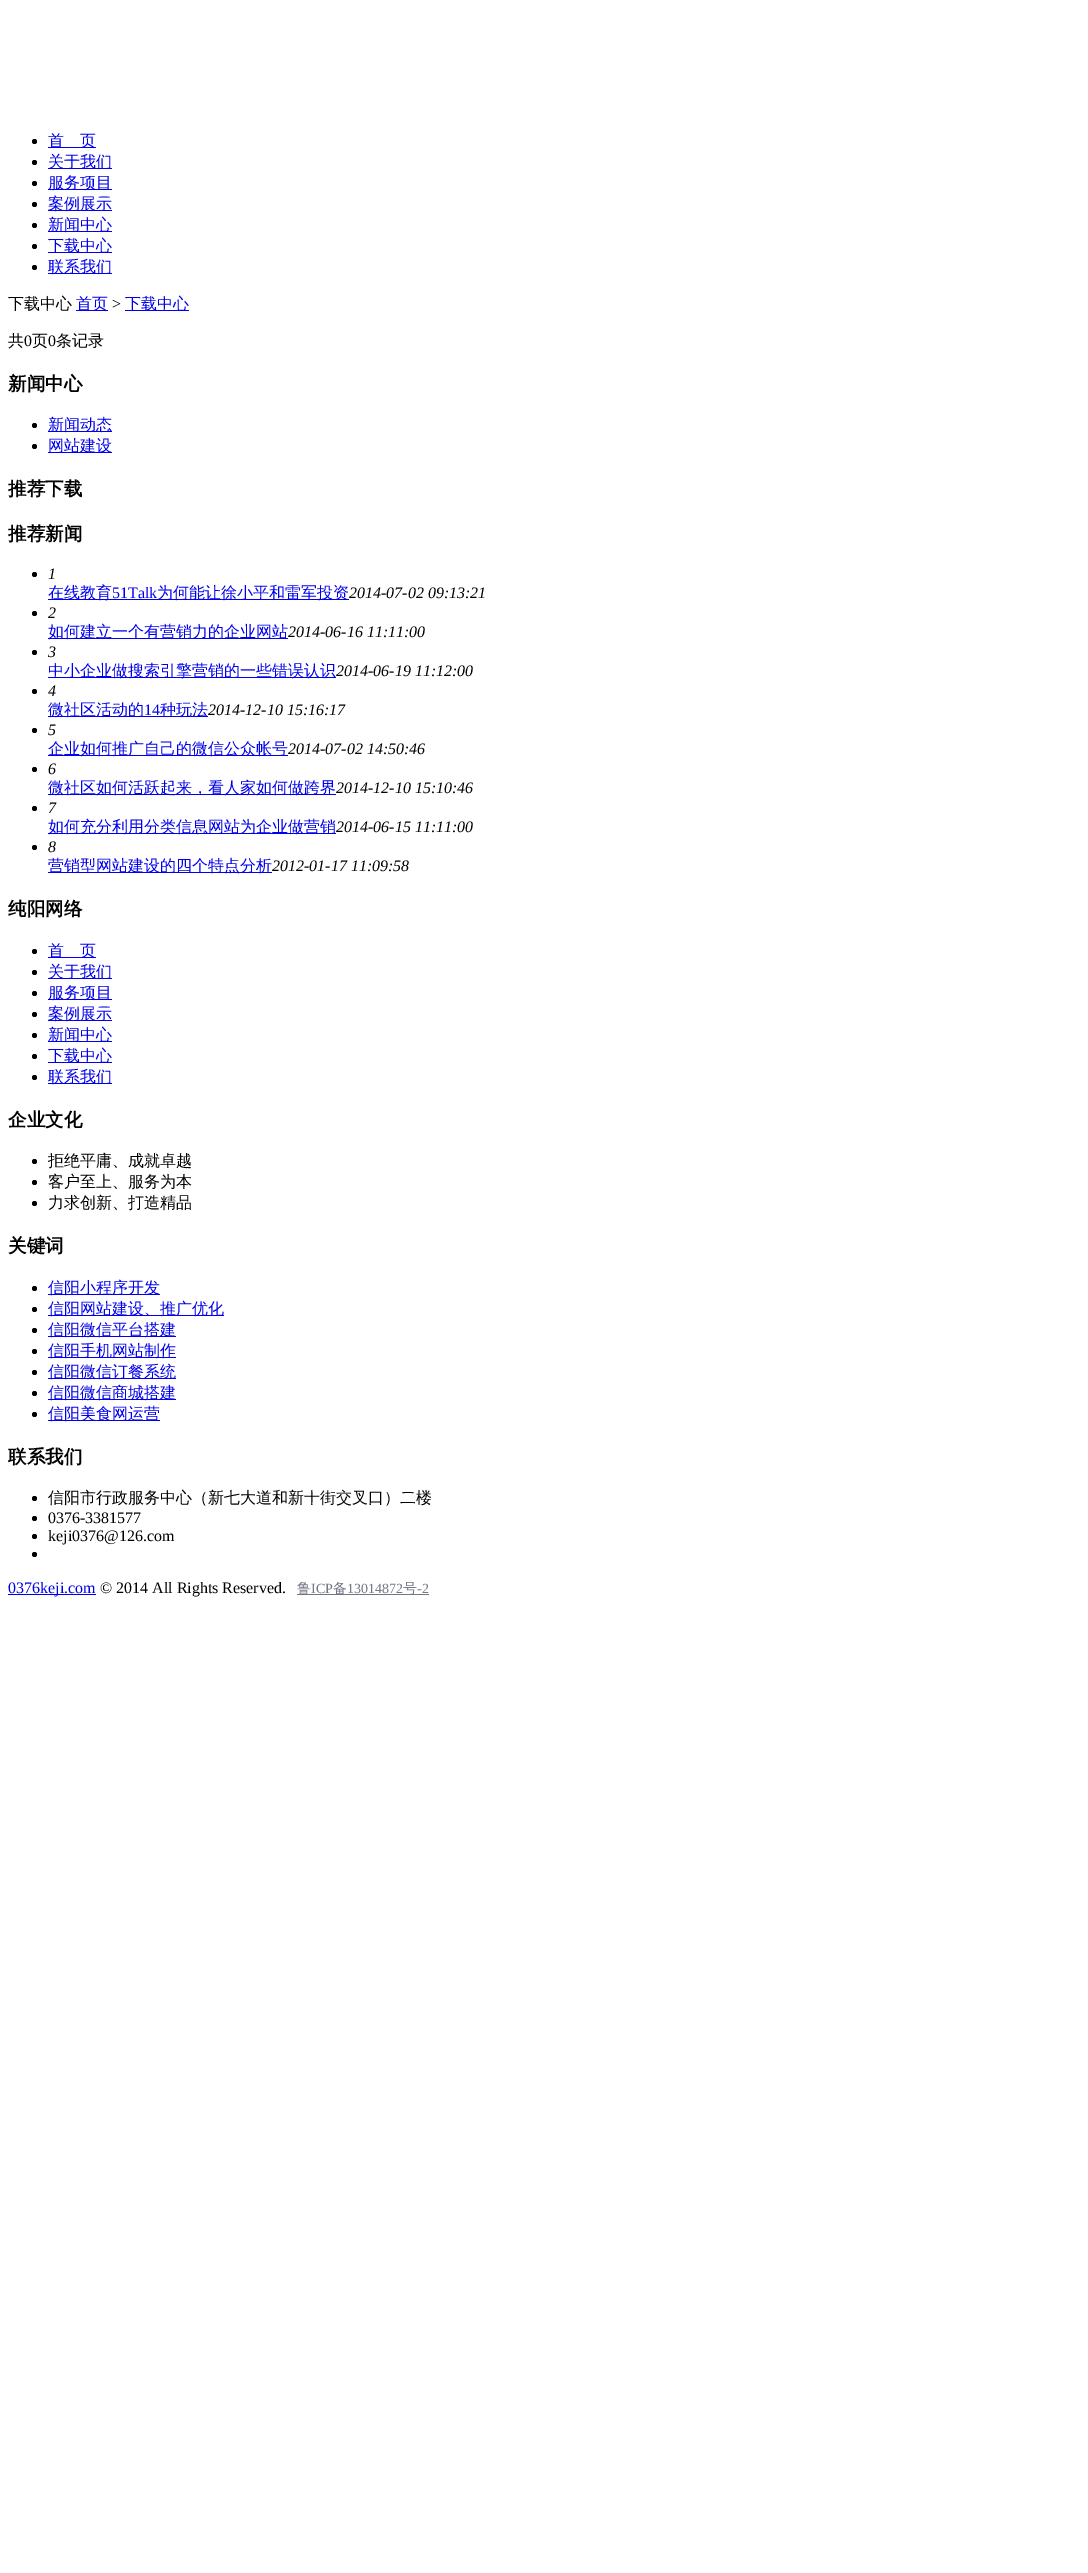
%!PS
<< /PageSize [1088 2573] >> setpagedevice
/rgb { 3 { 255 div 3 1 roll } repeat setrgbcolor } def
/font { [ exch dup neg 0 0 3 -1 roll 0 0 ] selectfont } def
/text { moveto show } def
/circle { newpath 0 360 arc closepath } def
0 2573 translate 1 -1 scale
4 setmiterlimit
255 255 255 rgb
0 0 1088 2573 rectfill
0 0 0 rgb
34.5 141.5 2.5 circle fill
0 0 238 rgb
48 147 48 1 rectfill
0 0 0 rgb
34.5 162.5 2.5 circle fill
0 0 238 rgb
48 168 64 1 rectfill
0 0 0 rgb
34.5 183.5 2.5 circle fill
0 0 238 rgb
48 189 64 1 rectfill
0 0 0 rgb
34.5 204.5 2.5 circle fill
0 0 238 rgb
48 210 64 1 rectfill
0 0 0 rgb
34.5 225.5 2.5 circle fill
0 0 238 rgb
48 231 64 1 rectfill
0 0 0 rgb
34.5 246.5 2.5 circle fill
0 0 238 rgb
48 252 64 1 rectfill
0 0 0 rgb
34.5 267.5 2.5 circle fill
0 0 238 rgb
48 273 64 1 rectfill
76 310 32 1 rectfill
125 310 64 1 rectfill
0 0 0 rgb
34.5 425.5 2.5 circle fill
0 0 238 rgb
48 431 64 1 rectfill
0 0 0 rgb
34.5 446.5 2.5 circle fill
0 0 238 rgb
48 452 64 1 rectfill
0 0 0 rgb
34.5 574.5 2.5 circle fill
0 0 238 rgb
48 599 301 1 rectfill
0 0 0 rgb
34.5 613.5 2.5 circle fill
0 0 238 rgb
48 638 240 1 rectfill
0 0 0 rgb
34.5 652.5 2.5 circle fill
0 0 238 rgb
48 677 288 1 rectfill
0 0 0 rgb
34.5 691.5 2.5 circle fill
0 0 238 rgb
48 716 160 1 rectfill
0 0 0 rgb
34.5 730.5 2.5 circle fill
0 0 238 rgb
48 755 240 1 rectfill
0 0 0 rgb
34.5 769.5 2.5 circle fill
0 0 238 rgb
48 794 288 1 rectfill
0 0 0 rgb
34.5 808.5 2.5 circle fill
0 0 238 rgb
48 833 288 1 rectfill
0 0 0 rgb
34.5 847.5 2.5 circle fill
0 0 238 rgb
48 872 224 1 rectfill
0 0 0 rgb
34.5 951.5 2.5 circle fill
0 0 238 rgb
48 957 48 1 rectfill
0 0 0 rgb
34.5 972.5 2.5 circle fill
0 0 238 rgb
48 978 64 1 rectfill
0 0 0 rgb
34.5 993.5 2.5 circle fill
0 0 238 rgb
48 999 64 1 rectfill
0 0 0 rgb
34.5 1014.5 2.5 circle fill
0 0 238 rgb
48 1020 64 1 rectfill
0 0 0 rgb
34.5 1035.5 2.5 circle fill
0 0 238 rgb
48 1041 64 1 rectfill
0 0 0 rgb
34.5 1056.5 2.5 circle fill
0 0 238 rgb
48 1062 64 1 rectfill
0 0 0 rgb
34.5 1077.5 2.5 circle fill
0 0 238 rgb
48 1083 64 1 rectfill
0 0 0 rgb
34.5 1161.5 2.5 circle fill
34.5 1182.5 2.5 circle fill
34.5 1203.5 2.5 circle fill
34.5 1288.5 2.5 circle fill
0 0 238 rgb
48 1294 112 1 rectfill
0 0 0 rgb
34.5 1309.5 2.5 circle fill
0 0 238 rgb
48 1315 176 1 rectfill
0 0 0 rgb
34.5 1330.5 2.5 circle fill
0 0 238 rgb
48 1336 128 1 rectfill
0 0 0 rgb
34.5 1351.5 2.5 circle fill
0 0 238 rgb
48 1357 128 1 rectfill
0 0 0 rgb
34.5 1372.5 2.5 circle fill
0 0 238 rgb
48 1378 128 1 rectfill
0 0 0 rgb
34.5 1393.5 2.5 circle fill
0 0 238 rgb
48 1399 128 1 rectfill
0 0 0 rgb
34.5 1414.5 2.5 circle fill
0 0 238 rgb
48 1420 112 1 rectfill
0 0 0 rgb
34.5 1498.5 2.5 circle fill
34.5 1518.5 2.5 circle fill
34.5 1536.5 2.5 circle fill
34.5 1554.5 2.5 circle fill
0 0 238 rgb
8 1594 88 1 rectfill
114 118 133 rgb
297 1594 132 1 rectfill
/WenQuanYiZenHei-Medium 16 font
0 0 238 rgb
(首　页) 48 146 text
(关于我们) 48 167 text
(服务项目) 48 188 text
(案例展示) 48 209 text
(新闻中心) 48 230 text
(下载中心) 48 251 text
(联系我们) 48 272 text
0 0 0 rgb
(下载中心) 8 309 text
0 0 238 rgb
(首页) 76 309 text
/LiberationSerif-Regular 16 font
0 0 0 rgb
(>) 112 309 text
/WenQuanYiZenHei-Medium 16 font
0 0 238 rgb
(下载中心) 125 309 text
0 0 0 rgb
(共) 8 346 text
/LiberationSerif-Regular 16 font
(0) 24 346 text
/WenQuanYiZenHei-Medium 16 font
(页) 32 346 text
/LiberationSerif-Regular 16 font
(0) 48 346 text
/WenQuanYiZenHei-Medium 16 font
(条记录) 56 346 text
/WenQuanYiZenHei-Bold 18.5 font
(新闻中心) 8 390 text
/WenQuanYiZenHei-Medium 16 font
0 0 238 rgb
(新闻动态) 48 430 text
(网站建设) 48 451 text
/WenQuanYiZenHei-Bold 18.5 font
0 0 0 rgb
(推荐下载) 8 495 text
(推荐新闻) 8 540 text
/LiberationSerif-Italic 16 font
(1) 48 579 text
/WenQuanYiZenHei-Medium 16 font
0 0 238 rgb
(在线教育) 48 598 text
/LiberationSerif-Regular 16 font
(51Talk) 112 598 text
/WenQuanYiZenHei-Medium 16 font
(为何能让徐小平和雷军投资) 157 598 text
/LiberationSerif-Italic 16 font
0 0 0 rgb
(2014-07-02 09:13:21) 349 598 text
(2) 48 618 text
/WenQuanYiZenHei-Medium 16 font
0 0 238 rgb
(如何建立一个有营销力的企业网站) 48 637 text
/LiberationSerif-Italic 16 font
0 0 0 rgb
(2014-06-16 11:11:00) 288 637 text
(3) 48 657 text
/WenQuanYiZenHei-Medium 16 font
0 0 238 rgb
(中小企业做搜索引擎营销的一些错误认识) 48 676 text
/LiberationSerif-Italic 16 font
0 0 0 rgb
(2014-06-19 11:12:00) 336 676 text
(4) 48 696 text
/WenQuanYiZenHei-Medium 16 font
0 0 238 rgb
(微社区活动的) 48 715 text
/LiberationSerif-Regular 16 font
(14) 144 715 text
/WenQuanYiZenHei-Medium 16 font
(种玩法) 160 715 text
/LiberationSerif-Italic 16 font
0 0 0 rgb
(2014-12-10 15:16:17) 208 715 text
(5) 48 735 text
/WenQuanYiZenHei-Medium 16 font
0 0 238 rgb
(企业如何推广自己的微信公众帐号) 48 754 text
/LiberationSerif-Italic 16 font
0 0 0 rgb
(2014-07-02 14:50:46) 288 754 text
(6) 48 774 text
/WenQuanYiZenHei-Medium 16 font
0 0 238 rgb
(微社区如何活跃起来，看人家如何做跨界) 48 793 text
/LiberationSerif-Italic 16 font
0 0 0 rgb
(2014-12-10 15:10:46) 336 793 text
(7) 48 813 text
/WenQuanYiZenHei-Medium 16 font
0 0 238 rgb
(如何充分利用分类信息网站为企业做营销) 48 832 text
/LiberationSerif-Italic 16 font
0 0 0 rgb
(2014-06-15 11:11:00) 336 832 text
(8) 48 852 text
/WenQuanYiZenHei-Medium 16 font
0 0 238 rgb
(营销型网站建设的四个特点分析) 48 871 text
/LiberationSerif-Italic 16 font
0 0 0 rgb
(2012-01-17 11:09:58) 272 871 text
/WenQuanYiZenHei-Bold 18.5 font
(纯阳网络) 8 915 text
/WenQuanYiZenHei-Medium 16 font
0 0 238 rgb
(首　页) 48 956 text
(关于我们) 48 977 text
(服务项目) 48 998 text
(案例展示) 48 1019 text
(新闻中心) 48 1040 text
(下载中心) 48 1061 text
(联系我们) 48 1082 text
/WenQuanYiZenHei-Bold 18.5 font
0 0 0 rgb
(企业文化) 8 1126 text
/WenQuanYiZenHei-Medium 16 font
(拒绝平庸、成就卓越) 48 1166 text
(客户至上、服务为本) 48 1187 text
(力求创新、打造精品) 48 1208 text
/WenQuanYiZenHei-Bold 18.5 font
(关键词) 8 1252 text
/WenQuanYiZenHei-Medium 16 font
0 0 238 rgb
(信阳小程序开发) 48 1293 text
(信阳网站建设、推广优化) 48 1314 text
(信阳微信平台搭建) 48 1335 text
(信阳手机网站制作) 48 1356 text
(信阳微信订餐系统) 48 1377 text
(信阳微信商城搭建) 48 1398 text
(信阳美食网运营) 48 1419 text
/WenQuanYiZenHei-Bold 18.5 font
0 0 0 rgb
(联系我们) 8 1463 text
/WenQuanYiZenHei-Medium 16 font
(信阳市行政服务中心（新七大道和新十街交叉口）二楼) 48 1503 text
/LiberationSerif-Regular 16 font
(0376-3381577) 48 1523 text
(keji0376@126.com) 48 1541 text
0 0 238 rgb
(0376keji.com) 8 1593 text
0 0 0 rgb
(© 2014 All Rights Reserved.) 100 1593 text
/WenQuanYiZenHei-Medium 14 font
114 118 133 rgb
(鲁) 297 1593 text
/LiberationSerif-Regular 14 font
(ICP) 311 1593 text
/WenQuanYiZenHei-Medium 14 font
(备) 333 1593 text
/LiberationSerif-Regular 14 font
(13014872) 347 1593 text
/WenQuanYiZenHei-Medium 14 font
(号) 403 1593 text
/LiberationSerif-Regular 14 font
(-2) 417 1593 text
showpage
